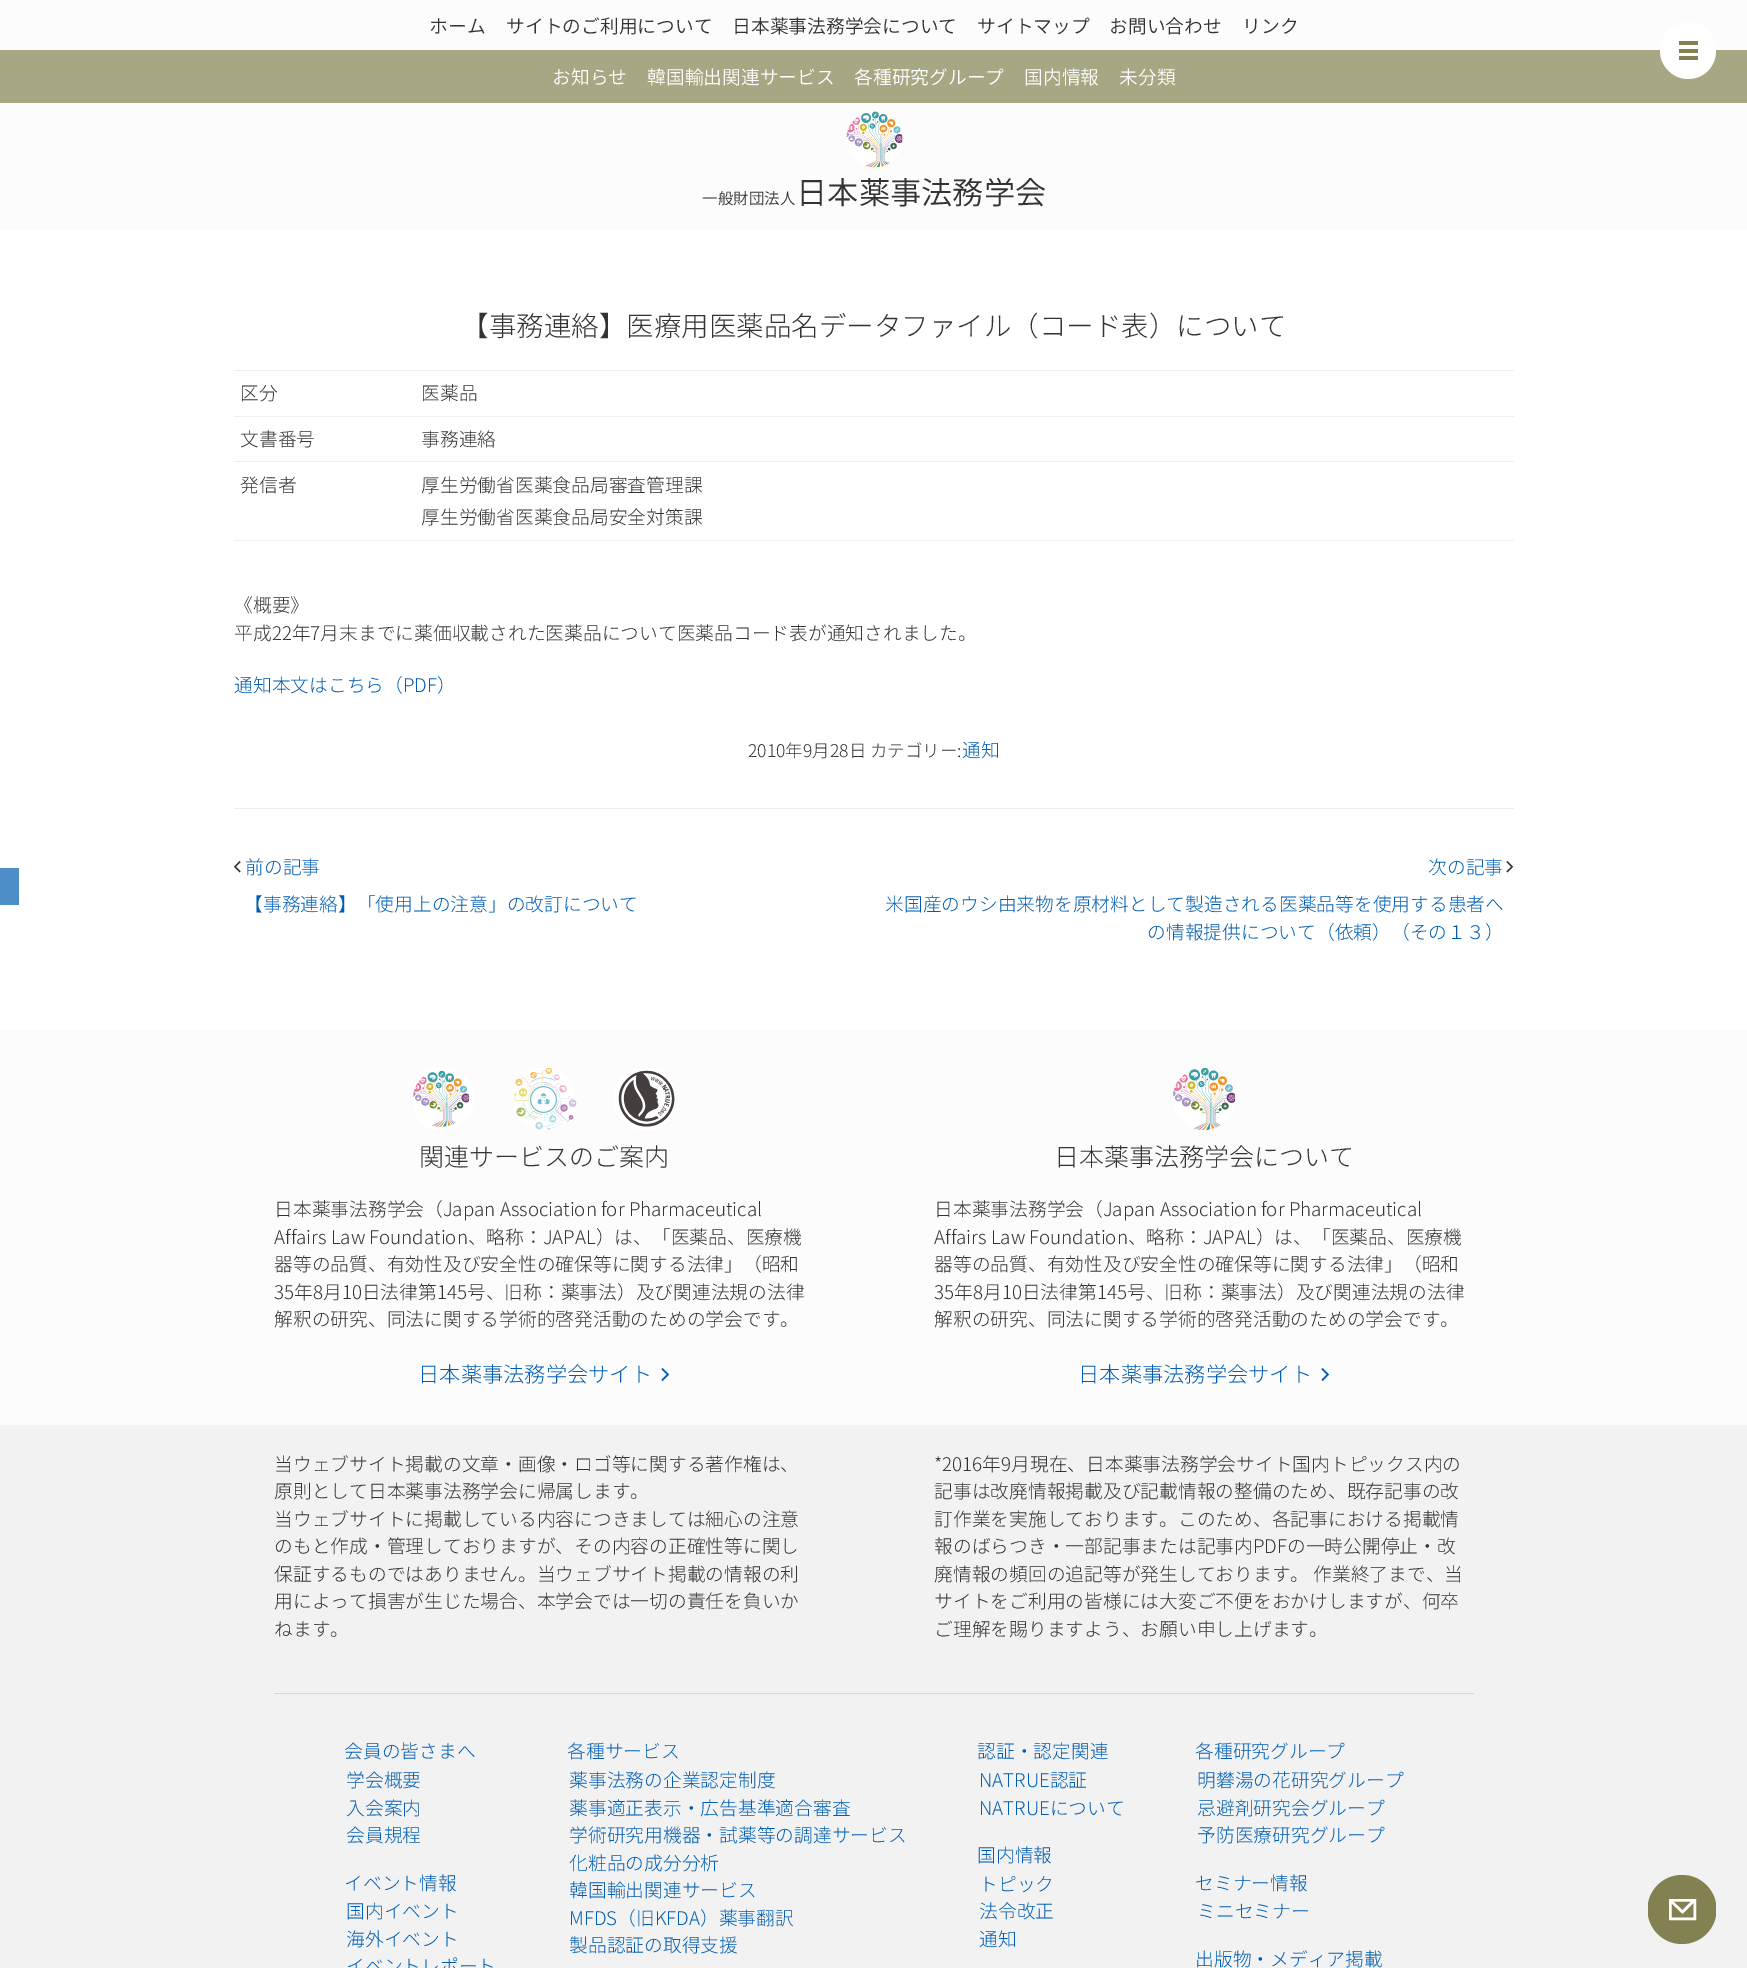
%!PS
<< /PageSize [1747 1968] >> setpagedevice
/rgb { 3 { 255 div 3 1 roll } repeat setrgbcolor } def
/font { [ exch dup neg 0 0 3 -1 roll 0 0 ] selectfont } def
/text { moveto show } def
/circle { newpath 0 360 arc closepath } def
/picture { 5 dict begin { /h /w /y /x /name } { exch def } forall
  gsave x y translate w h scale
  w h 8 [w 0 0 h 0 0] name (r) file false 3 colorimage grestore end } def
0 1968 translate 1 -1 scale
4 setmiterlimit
255 255 255 rgb
0 0 1747 1968 rectfill
77 142 201 rgb
0 868 19 37 rectfill
252 252 252 rgb
0 0 1747 230 rectfill
(img_01.rgb) 846 111 57 57 picture
167 167 132 rgb
0 50 1747 53 rectfill
236 236 236 rgb
234 808 1280 1 rectfill
238 238 238 rgb
234 540 1280 1 rectfill
234 370 1280 1 rectfill
234 416 1280 1 rectfill
234 461 1280 1 rectfill
(img_02.rgb) 234 861 7 12 picture
(img_03.rgb) 1506 861 8 12 picture
252 252 252 rgb
0 1030 1747 395 rectfill
(img_04.rgb) 413 1068 262 62 picture
(img_05.rgb) 661 1368 9 14 picture
(img_06.rgb) 1173 1068 62 62 picture
(img_05.rgb) 1321 1368 9 14 picture
242 242 242 rgb
0 1425 1747 543 rectfill
214 214 214 rgb
274 1693 1200 1 rectfill
gsave
1660 23 56 56 rectclip
255 255 255 rgb
1660 51 moveto 0 -16 13 -29 28 -29 rcurveto 16 0 28 13 28 29 rcurveto 0 15 -12 28 -28 28 rcurveto -15 0 -28 -13 -28 -28 rcurveto closepath eofill
grestore
131 129 81 rgb
1679 41 19 4 rectfill
1679 49 19 4 rectfill
1679 56 19 4 rectfill
gsave
1648 1875 68 69 rectclip
1682 1909.5 34.5 circle fill
grestore
255 255 255 rgb
2.5 setlinewidth
2 setlinecap
1671 1901 moveto 11.5 11 rlineto 11 -11 rlineto stroke
0 setlinecap
1670.25 1900.25 24.5 18.5 rectstroke
/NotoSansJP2-Light 18.75 font
51 51 51 rgb
(ホーム) 429 33 text
(サイトのご利用について) 506 33 text
(日本薬事法務学会について) 732 33 text
(サイトマップ) 977 33 text
(お問い合わせ) 1109 33 text
(リンク) 1242 33 text
255 255 255 rgb
(お知らせ) 552 84 text
(韓国輸出関連サービス) 647 84 text
(各種研究グループ) 854 84 text
(国内情報) 1024 84 text
(未分類) 1119 84 text
/NotoSansJP2-Light 15.5 font
51 51 51 rgb
(一般財団法人) 702 204 text
/NotoSansJP2-Light 31.25 font
(日本薬事法務学会) 796 204 text
/NotoSansJP-Light 27.5 font
(【事務連絡】医療用医薬品名データファイル（コード表）について) 461 336 text
/NotoSansJP-Light 18.75 font
(区分) 240 400 text
(医薬品) 421 400 text
(文書番号) 240 446 text
(事務連絡) 421 446 text
(発信者) 240 492 text
(厚生労働省医薬食品局審査管理課) 421 492 text
(厚生労働省医薬食品局安全対策課) 421 524 text
(《概要》) 234 612 text
(平成22年7月末までに薬価収載された医薬品について医薬品コード表が通知されました。) 234 640 text
0 93 178 rgb
(通知本文はこちら（PDF）) 234 692 text
/NotoSansJP-Light 17.5 font
51 51 51 rgb
(2010年9月28日 カテゴリー:) 748 757 text
/NotoSansJP-Light 18.75 font
0 93 178 rgb
(通知) 962 757 text
(前の記事) 245 874 text
(次の記事) 1428 874 text
(【事務連絡】「使用上の注意」の改訂について) 244 911 text
(米国産のウシ由来物を原材料として製造される医薬品等を使用する患者へ) 885 911 text
(の情報提供について（依頼）（その１３）) 1147 939 text
/NotoSansJP-Light 25 font
51 51 51 rgb
(関連サービスのご案内) 419 1166 text
/NotoSansJP-Light 18.75 font
(日本薬事法務学会（Japan Association for Pharmaceutical) 274 1216 text
(Affairs Law Foundation、略称：JAPAL）は、「医薬品、医療機) 274 1244 text
(器等の品質、有効性及び安全性の確保等に関する法律」（昭和) 274 1271 text
(35年8月10日法律第145号、旧称：薬事法）及び関連法規の法律) 274 1299 text
(解釈の研究、同法に関する学術的啓発活動のための学会です。) 274 1326 text
/NotoSansJP-Light 21.25 font
0 93 178 rgb
(日本薬事法務学会サイト) 418 1382 text
/NotoSansJP-Light 25 font
51 51 51 rgb
(日本薬事法務学会について) 1054 1166 text
/NotoSansJP-Light 18.75 font
(日本薬事法務学会（Japan Association for Pharmaceutical) 934 1216 text
(Affairs Law Foundation、略称：JAPAL）は、「医薬品、医療機) 934 1244 text
(器等の品質、有効性及び安全性の確保等に関する法律」（昭和) 934 1271 text
(35年8月10日法律第145号、旧称：薬事法）及び関連法規の法律) 934 1299 text
(解釈の研究、同法に関する学術的啓発活動のための学会です。) 934 1326 text
/NotoSansJP-Light 21.25 font
0 93 178 rgb
(日本薬事法務学会サイト) 1078 1382 text
/NotoSansJP-Light 18.75 font
51 51 51 rgb
(当ウェブサイト掲載の文章・画像・ロゴ等に関する著作権は、) 274 1471 text
(原則として日本薬事法務学会に帰属します。) 274 1498 text
(当ウェブサイトに掲載している内容につきましては細心の注意) 274 1526 text
(のもと作成・管理しておりますが、その内容の正確性等に関し) 274 1553 text
(保証するものではありません。当ウェブサイト掲載の情報の利) 274 1581 text
(用によって損害が生じた場合、本学会では一切の責任を負いか) 274 1608 text
(ねます。) 274 1636 text
(*2016年9月現在、日本薬事法務学会サイト国内トピックス内の) 934 1471 text
(記事は改廃情報掲載及び記載情報の整備のため、既存記事の改) 934 1498 text
(訂作業を実施しております。このため、各記事における掲載情) 934 1526 text
(報のばらつき・一部記事または記事内PDFの一時公開停止・改) 934 1553 text
(廃情報の頻回の追記等が発生しております。 作業終了まで、当) 934 1581 text
(サイトをご利用の皆様には大変ご不便をおかけしますが、何卒) 934 1608 text
(ご理解を賜りますよう、お願い申し上げます。) 934 1636 text
0 93 178 rgb
(会員の皆さまへ) 344 1758 text
(学会概要) 346 1787 text
(入会案内) 346 1815 text
(会員規程) 346 1842 text
(イベント情報) 344 1890 text
(国内イベント) 346 1918 text
(海外イベント) 346 1946 text
(イベントレポート) 346 1973 text
(各種サービス) 567 1758 text
(薬事法務の企業認定制度) 569 1787 text
(薬事適正表示・広告基準適合審査) 569 1815 text
(学術研究用機器・試薬等の調達サービス) 569 1842 text
(化粧品の成分分析) 569 1870 text
(韓国輸出関連サービス) 569 1897 text
(MFDS（旧KFDA）薬事翻訳) 569 1925 text
(製品認証の取得支援) 569 1952 text
(認証・認定関連) 977 1758 text
(NATRUE認証) 979 1787 text
(NATRUEについて) 979 1815 text
(国内情報) 977 1862 text
(トピック) 979 1891 text
(法令改正) 979 1918 text
(通知) 979 1946 text
(各種研究グループ) 1195 1758 text
(明礬湯の花研究グループ) 1197 1787 text
(忌避剤研究会グループ) 1197 1815 text
(予防医療研究グループ) 1197 1842 text
(セミナー情報) 1195 1890 text
(ミニセミナー) 1197 1918 text
(出版物・メディア掲載) 1195 1966 text
showpage
